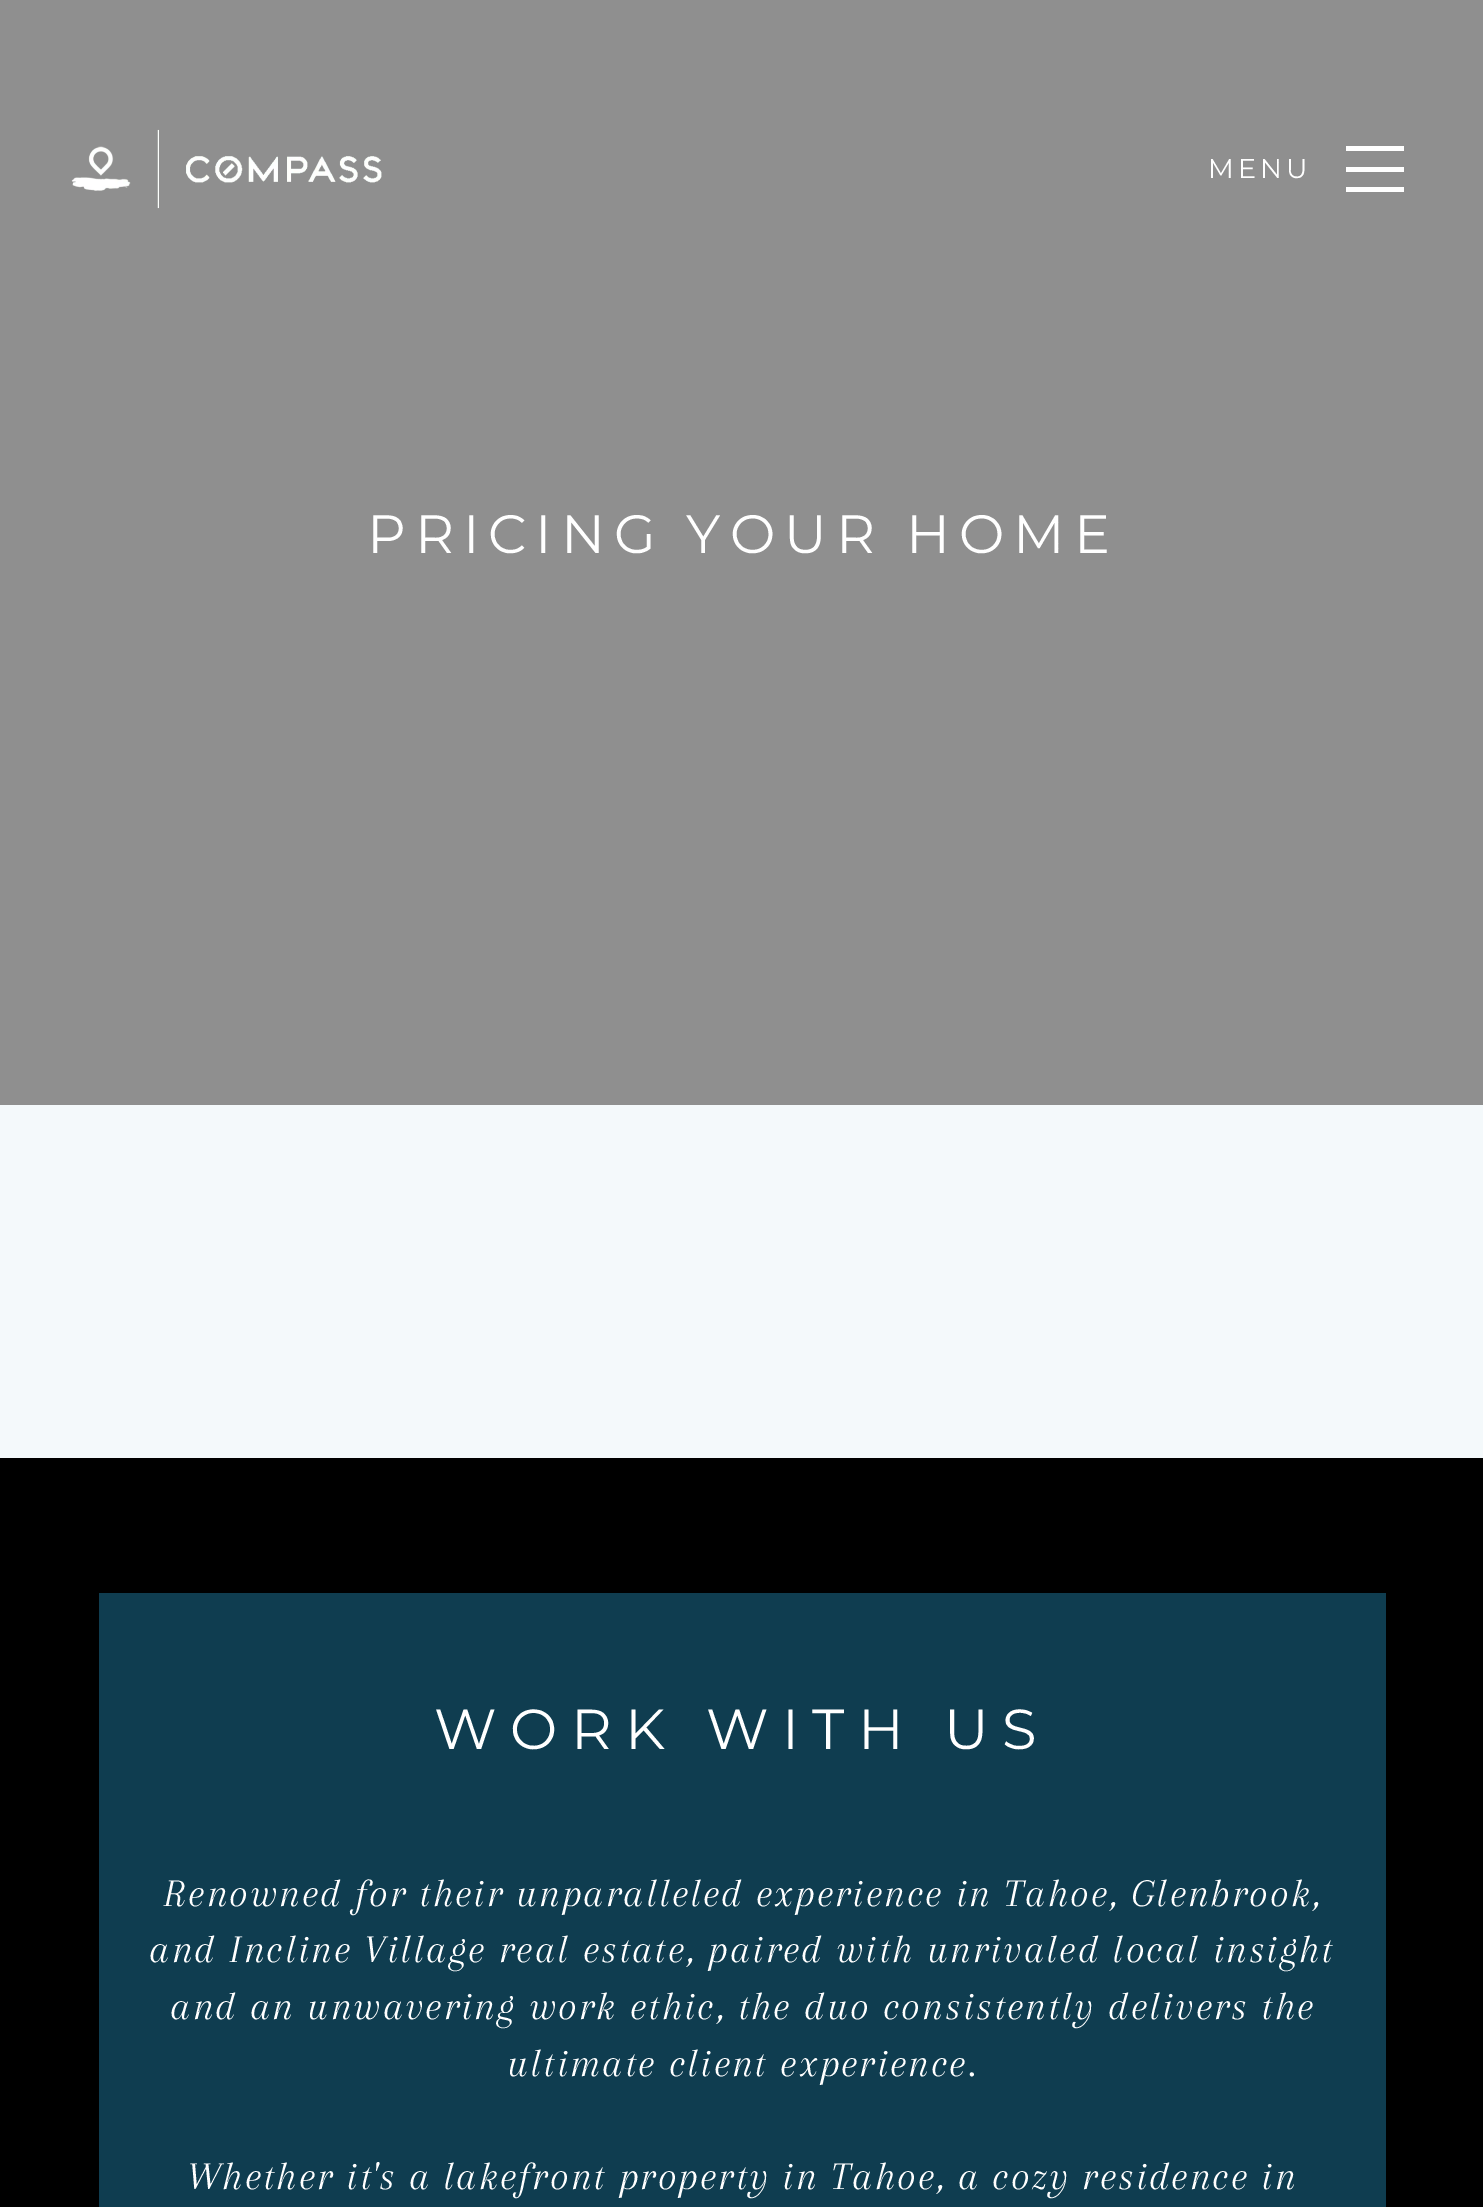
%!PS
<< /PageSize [1483 2207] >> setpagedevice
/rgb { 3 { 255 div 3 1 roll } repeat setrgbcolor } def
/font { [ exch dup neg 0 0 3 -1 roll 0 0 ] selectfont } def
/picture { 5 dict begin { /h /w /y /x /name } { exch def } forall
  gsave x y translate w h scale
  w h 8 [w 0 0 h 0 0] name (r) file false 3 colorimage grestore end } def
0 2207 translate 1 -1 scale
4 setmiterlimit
143 143 143 rgb
0 0 1483 2207 rectfill
(img_01.rgb) 71 129 311 80 picture
255 255 255 rgb
1346 167 58 5 rectfill
1346 146 58 5 rectfill
1346 187 58 5 rectfill
244 249 251 rgb
0 1105 1483 353 rectfill
0 0 0 rgb
0 1458 1483 749 rectfill
15 61 80 rgb
99 1593 1287 614 rectfill
/Montserrat-Regular 27 font
255 255 255 rgb
1208 178 moveto 4 0 (MENU) ashow
/Montserrat-Regular 54 font
367 553 moveto -1 0 32 9 0 (PRICING YOUR HOME) awidthshow
/Montserrat-Regular 56.25 font
434 1749 moveto -1 0 32 13.5 0 (WORK WITH US) awidthshow
/Arapey-Italic 40.5 font
163 1906 moveto -0.25 0 32 2.25 0 (Renowned for their unparalleled experience in Tahoe, Glenbrook,) awidthshow
149 1962 moveto 2.25 0 (and Incline Village real estate, paired with unrivaled local insight) ashow
170 2019 moveto 2.25 0 (and an unwavering work ethic, the duo consistently delivers the) ashow
507 2076 moveto 2.25 0 (ultimate client experience.) ashow
187 2189 moveto -0.25 0 32 2.25 0 (Whether it's a lakefront property in Tahoe, a cozy residence in) awidthshow
showpage
